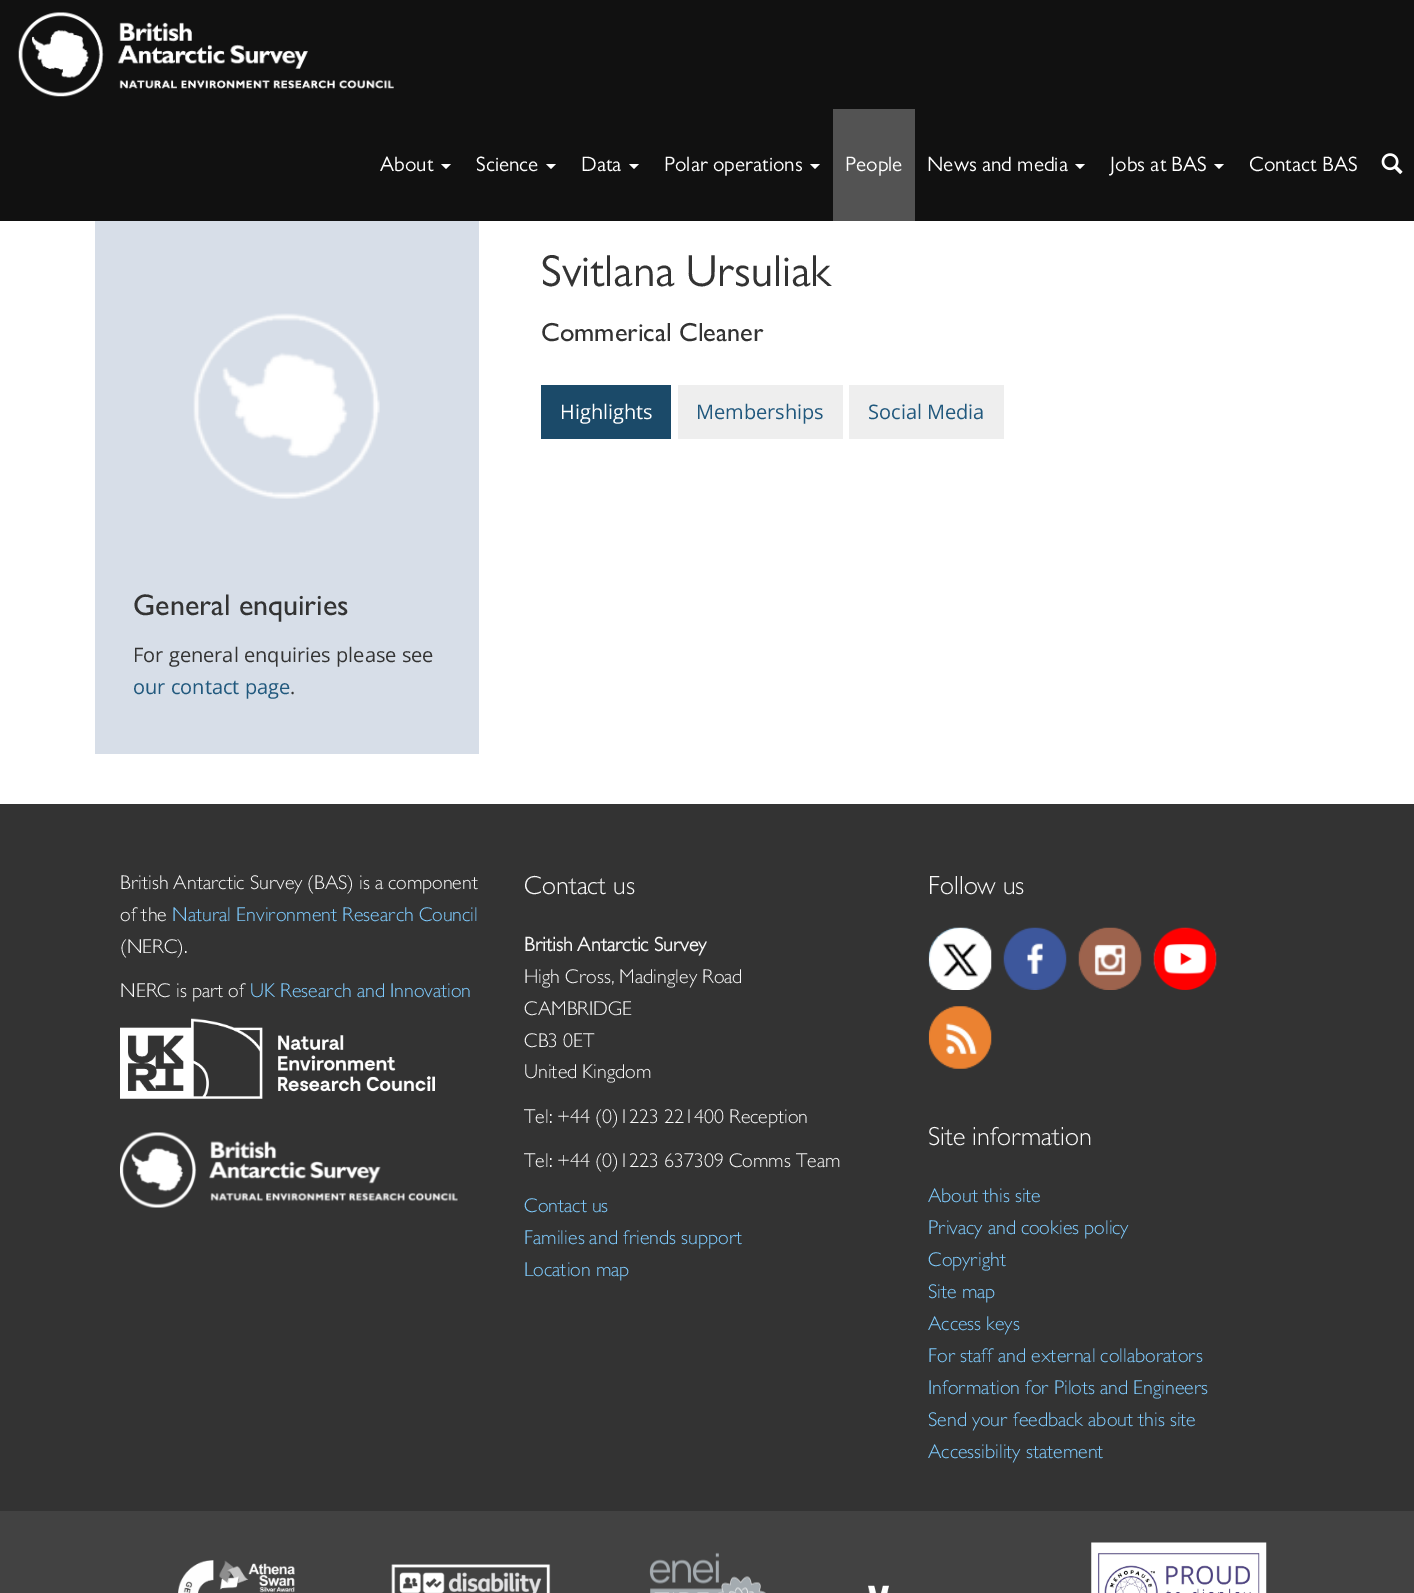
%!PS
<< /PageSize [1414 1593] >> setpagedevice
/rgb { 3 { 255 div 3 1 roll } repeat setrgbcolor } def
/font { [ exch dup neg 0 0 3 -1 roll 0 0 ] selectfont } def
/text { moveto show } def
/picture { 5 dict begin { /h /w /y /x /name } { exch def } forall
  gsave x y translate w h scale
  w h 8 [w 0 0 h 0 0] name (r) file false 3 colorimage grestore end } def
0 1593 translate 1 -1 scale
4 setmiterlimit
51 51 51 rgb
0 0 1414 1593 rectfill
255 255 255 rgb
0 221 1414 583 rectfill
17 17 17 rgb
0 0 1414 221 rectfill
(img_01.rgb) 18 12 376 85 picture
255 255 255 rgb
441 164 moveto 10 0 rlineto -5 5 rlineto closepath fill
546 164 moveto 10 0 rlineto -5 5 rlineto closepath fill
629 164 moveto 10 0 rlineto -5 5 rlineto closepath fill
810 164 moveto 10 0 rlineto -5 5 rlineto closepath fill
83 83 83 rgb
833 109 82 112 rectfill
255 255 255 rgb
1075 164 moveto 10 0 rlineto -5 5 rlineto closepath fill
1214 164 moveto 10 0 rlineto -5 5 rlineto closepath fill
(img_02.rgb) 1381 153 22 22 picture
27 74 105 rgb
541 385 130 54 rectfill
238 238 238 rgb
678 385 165 54 rectfill
849 385 155 54 rectfill
215 222 232 rgb
95 221 384 533 rectfill
(img_03.rgb) 193 313 187 186 picture
(img_04.rgb) 120 1018 315 81 picture
(img_05.rgb) 120 1132 338 76 picture
(img_06.rgb) 928 927 64 63 picture
(img_07.rgb) 1003 927 64 63 picture
(img_08.rgb) 1078 927 64 63 picture
(img_09.rgb) 1153 927 64 63 picture
(img_10.rgb) 928 1006 64 63 picture
66 66 66 rgb
0 1511 1414 82 rectfill
(img_11.rgb) 178 1560 117 33 picture
(img_12.rgb) 391 1564 160 29 picture
(img_13.rgb) 649 1552 117 41 picture
(img_14.rgb) 868 1585 21 8 picture
(img_15.rgb) 1091 1542 176 51 picture
/GillSans-Regular 21 font
255 255 255 rgb
(About) 380 171 text
(Science) 476 171 text
(Data) 581 171 text
(Polar operations) 664 171 text
(People) 845 171 text
(News and media) 927 171 text
(Jobs at BAS) 1110 171 text
(Contact BAS) 1249 171 text
/GillSans-Regular 45 font
51 51 51 rgb
(Svitlana Ursuliak) 541 286 text
/GillSans-Medium 26.25 font
(Commerical Cleaner) 541 341 text
/OpenSans-Regular 20 font
255 255 255 rgb
(Highlights) 560 419 text
32 88 125 rgb
(Memberships) 696 419 text
(Social Media) 868 419 text
/GillSans-Medium 30 font
51 51 51 rgb
(General enquiries) 133 615 text
/OpenSans-Regular 20 font
(For general enquiries please see) 133 662 text
32 88 125 rgb
(our contact page) 133 694 text
51 51 51 rgb
(.) 290 694 text
/GillSans-Light 20 font
248 248 248 rgb
(British Antarctic Survey \(BAS\) is a component) 120 889 text
(of the) 120 921 text
127 204 255 rgb
(Natural Environment Research Council) 172 921 text
248 248 248 rgb
(\(NERC\).) 120 953 text
(NERC is part of) 120 997 text
127 204 255 rgb
(UK Research and Innovation) 250 997 text
/GillSans-Light 26.25 font
248 248 248 rgb
(Contact us) 524 894 text
/GillSans-Bold 20 font
(British Antarctic Survey) 524 951 text
/GillSans-Light 20 font
(High Cross, Madingley Road) 524 983 text
(CAMBRIDGE) 524 1015 text
(CB3 0ET) 524 1047 text
(United Kingdom) 524 1078 text
(Tel: +44 \(0\)1223 221400 Reception) 524 1123 text
(Tel: +44 \(0\)1223 637309 Comms Team) 524 1167 text
127 204 255 rgb
(Contact us) 524 1212 text
(Families and friends support) 524 1244 text
(Location map) 524 1276 text
/GillSans-Light 26.25 font
248 248 248 rgb
(Follow us) 928 894 text
(Site information) 928 1145 text
/GillSans-Light 20 font
127 204 255 rgb
(About this site) 928 1202 text
(Privacy and cookies policy) 928 1234 text
(Copyright) 928 1266 text
(Site map) 928 1298 text
(Access keys) 928 1330 text
(For staff and external collaborators) 928 1362 text
(Information for Pilots and Engineers) 928 1394 text
(Send your feedback about this site) 928 1426 text
(Accessibility statement) 928 1458 text
showpage
